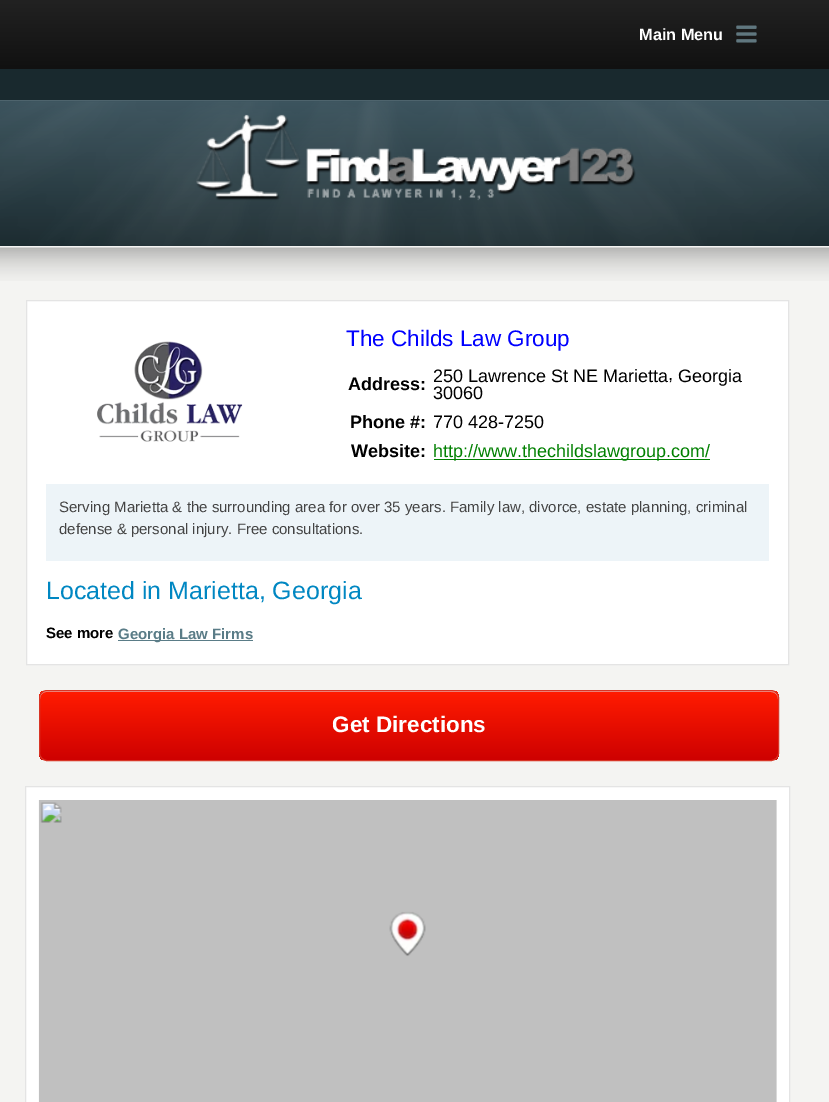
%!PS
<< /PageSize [829 1102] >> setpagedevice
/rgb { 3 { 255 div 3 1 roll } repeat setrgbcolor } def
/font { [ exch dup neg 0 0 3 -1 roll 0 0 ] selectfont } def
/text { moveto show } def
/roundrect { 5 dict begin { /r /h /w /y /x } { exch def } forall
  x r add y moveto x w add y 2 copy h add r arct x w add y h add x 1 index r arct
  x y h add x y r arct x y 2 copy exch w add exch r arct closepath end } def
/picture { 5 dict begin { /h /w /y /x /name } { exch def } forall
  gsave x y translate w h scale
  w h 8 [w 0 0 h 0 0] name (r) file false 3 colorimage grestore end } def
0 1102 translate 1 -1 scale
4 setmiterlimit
244 244 242 rgb
0 0 829 1102 rectfill
gsave 0 0 moveto 829 0 rlineto 0 69 rlineto -829 0 rlineto closepath clip newpath
<< /ShadingType 2 /ColorSpace /DeviceRGB /Coords [415 0 415 69] /Extend [true true] /Function << /FunctionType 2 /Domain [0 1] /C0 [0.133 0.133 0.133] /C1 [0.067 0.067 0.067] /N 1 >> >> shfill grestore
(img_01.rgb) 736 25 21 18 picture
25 41 46 rgb
0 69 829 31 rectfill
gsave 0 101 moveto 829 0 rlineto 0 145 rlineto -829 0 rlineto closepath clip newpath
<< /ShadingType 2 /ColorSpace /DeviceRGB /Coords [415 101 415 246] /Extend [true true] /Function << /FunctionType 2 /Domain [0 1] /C0 [0.227 0.322 0.361] /C1 [0.098 0.161 0.18] /N 1 >> >> shfill grestore
78 100 109 rgb
0 100 829 1 rectfill
(img_02.rgb) 0 101 829 145 picture
(img_03.rgb) 196 114 440 87 picture
(img_04.rgb) 0 247 829 34 picture
255 255 255 rgb
26.5 300.5 moveto 762 0 rlineto 0 364 rlineto -762 0 rlineto closepath gsave fill grestore
228 228 228 rgb
stroke
(img_05.rgb) 97 341 146 101 picture
0 128 0 rgb
434 459 276 1 rectfill
237 244 248 rgb
46 484 723 77 rectfill
90 124 135 rgb
118 640 135 1 rectfill
gsave
39 690 740 71 8 roundrect clip newpath
gsave 39 691 moveto 740 0 rlineto 0 69 rlineto -740 0 rlineto closepath clip newpath
<< /ShadingType 2 /ColorSpace /DeviceRGB /Coords [409 691 409 760] /Extend [true true] /Function << /FunctionType 3 /Domain [0 1] /Functions [<< /FunctionType 2 /Domain [0 1] /C0 [0.996 0.102 0] /C1 [0.996 0.102 0] /N 1 >> << /FunctionType 2 /Domain [0 1] /C0 [0.996 0.102 0] /C1 [0.808 0.004 0] /N 1 >>] /Bounds [0.05] /Encode [0 1 0 1] >> >> shfill grestore
grestore
242 156 147 rgb
46 692 moveto 725 0 rlineto 4 0 7 3 7 7 rcurveto 0 -2 rlineto 0 -3 -3 -6 -6 -6 rcurveto -726 0 rlineto -3 0 -6 3 -6 6 rcurveto 0 2 rlineto 0 -4 3 -7 6 -7 rcurveto closepath fill
216 53 38 rgb
39.5 690.5 739 70 7.5 roundrect stroke
255 255 255 rgb
25.5 786.5 moveto 764 0 rlineto 0 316 rlineto -764 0 rlineto closepath gsave fill grestore
228 228 228 rgb
stroke
(img_06.rgb) 38 800 739 302 picture
/LiberationSans-Bold 16.25 font
255 255 255 rgb
(Main Menu) 639 40 text
/LiberationSans-Regular 22.5 font
0 0 255 rgb
(The Childs Law Group) 346 346 text
/LiberationSans-Bold 18 font
0 0 0 rgb
(Address:) 348 390 text
/LiberationSans-Regular 18 font
(250 Lawrence St NE Marietta) 433 382 text
(,) 668 380 text
(Georgia) 678 382 text
(30060) 433 399 text
/LiberationSans-Bold 18 font
(Phone #:) 350 428 text
/LiberationSans-Regular 18 font
(770 428-7250) 433 428 text
/LiberationSans-Bold 18 font
(Website:) 351 457 text
/LiberationSans-Regular 18 font
0 128 0 rgb
(http://www.thechildslawgroup.com/) 433 457 text
/LiberationSans-Regular 15 font
68 68 68 rgb
(Serving Marietta & the surrounding area for over 35 years. Family law, divorce, estate planning, criminal) 59 512 text
(defense & personal injury. Free consultations.) 59 534 text
/LiberationSans-Regular 25 font
0 135 194 rgb
(Located in Marietta, Georgia) 46 599 text
/LiberationSans-Bold 15 font
0 0 0 rgb
(See more) 46 638 text
90 124 135 rgb
(Georgia Law Firms) 118 639 text
/LiberationSans-Bold 22.5 font
255 255 255 rgb
(Get Directions) 332 732 text
showpage
